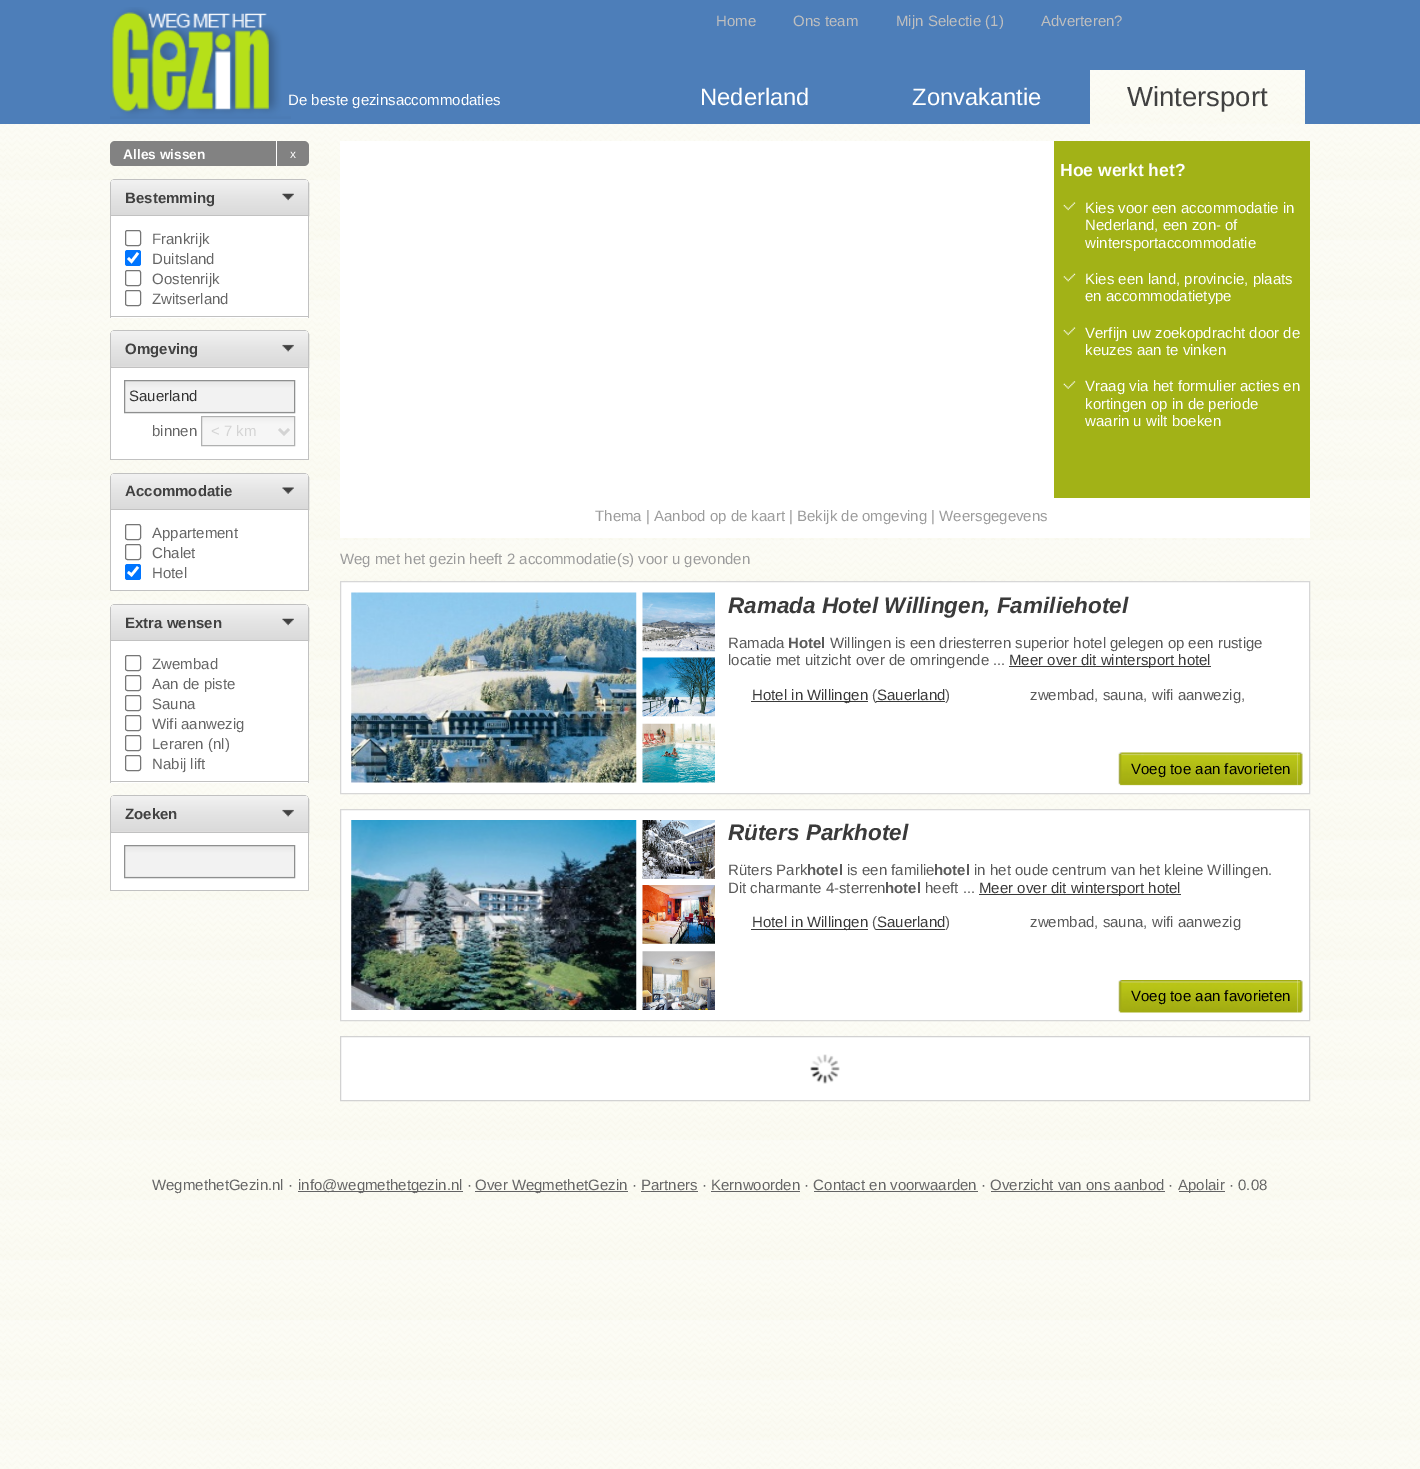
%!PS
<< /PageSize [1420 1469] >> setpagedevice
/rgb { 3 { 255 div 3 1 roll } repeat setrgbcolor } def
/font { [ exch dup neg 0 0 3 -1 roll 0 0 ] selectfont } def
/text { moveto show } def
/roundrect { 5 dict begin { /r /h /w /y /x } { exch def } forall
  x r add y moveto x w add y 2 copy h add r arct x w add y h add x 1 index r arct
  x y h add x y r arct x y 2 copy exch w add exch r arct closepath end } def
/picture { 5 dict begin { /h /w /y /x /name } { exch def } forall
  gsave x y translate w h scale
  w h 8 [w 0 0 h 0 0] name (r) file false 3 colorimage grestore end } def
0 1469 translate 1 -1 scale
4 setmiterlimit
255 255 255 rgb
0 0 1420 1469 rectfill
(img_01.rgb) 0 1256 1420 213 picture
(img_02.rgb) 0 124 1420 1132 picture
77 126 185 rgb
0 0 1420 124 rectfill
(img_03.rgb) 110 7 181 112 picture
(img_04.rgb) 1090 70 215 54 picture
130 130 130 rgb
110 141 199 25 5 roundrect fill
255 255 255 rgb
276 141 1 25 rectfill
222 221 221 rgb
115 179.5 moveto 189 0 rlineto 2.5 0 4.5 2 4.5 4.5 rcurveto 0 31.5 rlineto -198 0 rlineto 0 -31.5 rlineto 0 -2.5 2 -4.5 4.5 -4.5 rcurveto closepath gsave fill grestore
193 193 193 rgb
stroke
gsave 116 180 moveto 187 0 rlineto 3 0 5 2 5 5 rcurveto 0 30 rlineto -197 0 rlineto 0 -30 rlineto 0 -3 2 -5 5 -5 rcurveto closepath clip newpath
<< /ShadingType 2 /ColorSpace /DeviceRGB /Coords [209 180 209 215] /Extend [true true] /Function << /FunctionType 3 /Domain [0 1] /Functions [<< /FunctionType 2 /Domain [0 1] /C0 [0.949 0.949 0.949] /C1 [0.894 0.894 0.894] /N 1 >> << /FunctionType 2 /Domain [0 1] /C0 [0.894 0.894 0.894] /C1 [0.855 0.855 0.855] /N 1 >>] /Bounds [0.5] /Encode [0 1 0 1] >> >> shfill grestore
(img_05.rgb) 282 193 12 8 picture
255 255 255 rgb
111 216 197 102 rectfill
193 193 193 rgb
308 216 1 102 rectfill
110 316 199 1 rectfill
110 216 1 102 rectfill
118 118 118 rgb
125.5 230.5 15 15 2 roundrect stroke
0 117 255 rgb
125 250 16 16 2.5 roundrect fill
255 255 255 rgb
2.6 setlinewidth
128 258 moveto 3.5 3.5 rlineto 6.5 -8.5 rlineto stroke
118 118 118 rgb
1 setlinewidth
125.5 270.5 15 15 2 roundrect stroke
125.5 290.5 15 15 2 roundrect stroke
222 221 221 rgb
115 330.5 moveto 189 0 rlineto 2.5 0 4.5 2 4.5 4.5 rcurveto 0 32.5 rlineto -198 0 rlineto 0 -32.5 rlineto 0 -2.5 2 -4.5 4.5 -4.5 rcurveto closepath gsave fill grestore
193 193 193 rgb
stroke
gsave 116 331 moveto 187 0 rlineto 3 0 5 2 5 5 rcurveto 0 30 rlineto -197 0 rlineto 0 -30 rlineto 0 -3 2 -5 5 -5 rcurveto closepath clip newpath
<< /ShadingType 2 /ColorSpace /DeviceRGB /Coords [209 331 209 366] /Extend [true true] /Function << /FunctionType 3 /Domain [0 1] /Functions [<< /FunctionType 2 /Domain [0 1] /C0 [0.949 0.949 0.949] /C1 [0.894 0.894 0.894] /N 1 >> << /FunctionType 2 /Domain [0 1] /C0 [0.894 0.894 0.894] /C1 [0.855 0.855 0.855] /N 1 >>] /Bounds [0.5] /Encode [0 1 0 1] >> >> shfill grestore
(img_06.rgb) 282 344 12 8 picture
255 255 255 rgb
111 368 197 91 rectfill
193 193 193 rgb
308 368 1 92 rectfill
110 459 199 1 rectfill
110 368 1 92 rectfill
gsave 125 381 moveto 169 0 rlineto 0 30 rlineto -169 0 rlineto closepath clip newpath
<< /ShadingType 2 /ColorSpace /DeviceRGB /Coords [209 381 209 411] /Extend [true true] /Function << /FunctionType 3 /Domain [0 1] /Functions [<< /FunctionType 2 /Domain [0 1] /C0 [0.91 0.91 0.91] /C1 [0.949 0.949 0.949] /N 1 >> << /FunctionType 2 /Domain [0 1] /C0 [0.949 0.949 0.949] /C1 [0.949 0.949 0.949] /N 1 >>] /Bounds [0.23] /Encode [0 1 0 1] >> >> shfill grestore
gsave 124 411 moveto 171 0 rlineto 0 1 rlineto -171 0 rlineto closepath clip newpath
<< /ShadingType 2 /ColorSpace /DeviceRGB /Coords [209 411 209 441] /Extend [true true] /Function << /FunctionType 3 /Domain [0 1] /Functions [<< /FunctionType 2 /Domain [0 1] /C0 [0.91 0.91 0.91] /C1 [0.949 0.949 0.949] /N 1 >> << /FunctionType 2 /Domain [0 1] /C0 [0.949 0.949 0.949] /C1 [0.949 0.949 0.949] /N 1 >>] /Bounds [0.23] /Encode [0 1 0 1] >> >> shfill grestore
142 143 143 rgb
124.5 380.5 170 32 rectstroke
gsave 201 417 moveto 94 0 rlineto 0 1 rlineto -94 0 rlineto closepath clip newpath
<< /ShadingType 2 /ColorSpace /DeviceRGB /Coords [248 390 248 418] /Extend [true true] /Function << /FunctionType 3 /Domain [0 1] /Functions [<< /FunctionType 2 /Domain [0 1] /C0 [0.937 0.937 0.937] /C1 [0.965 0.965 0.965] /N 1 >> << /FunctionType 2 /Domain [0 1] /C0 [0.965 0.965 0.965] /C1 [0.965 0.965 0.965] /N 1 >>] /Bounds [0.23] /Encode [0 1 0 1] >> >> shfill grestore
gsave 202 418 moveto 92 0 rlineto 0 27 rlineto -92 0 rlineto closepath clip newpath
<< /ShadingType 2 /ColorSpace /DeviceRGB /Coords [248 418 248 445] /Extend [true true] /Function << /FunctionType 3 /Domain [0 1] /Functions [<< /FunctionType 2 /Domain [0 1] /C0 [0.937 0.937 0.937] /C1 [0.965 0.965 0.965] /N 1 >> << /FunctionType 2 /Domain [0 1] /C0 [0.965 0.965 0.965] /C1 [0.965 0.965 0.965] /N 1 >>] /Bounds [0.23] /Encode [0 1 0 1] >> >> shfill grestore
176 177 177 rgb
201.5 416.5 93 29 rectstroke
212 212 212 rgb
2.5 setlinewidth
279 429 moveto 5 5 rlineto 5 -5 rlineto stroke
222 221 221 rgb
115 473.5 moveto 189 0 rlineto 2.5 0 4.5 2 4.5 4.5 rcurveto 0 31.5 rlineto -198 0 rlineto 0 -31.5 rlineto 0 -2.5 2 -4.5 4.5 -4.5 rcurveto closepath gsave fill grestore
193 193 193 rgb
1 setlinewidth
stroke
gsave 116 474 moveto 187 0 rlineto 3 0 5 2 5 5 rcurveto 0 30 rlineto -197 0 rlineto 0 -30 rlineto 0 -3 2 -5 5 -5 rcurveto closepath clip newpath
<< /ShadingType 2 /ColorSpace /DeviceRGB /Coords [209 474 209 509] /Extend [true true] /Function << /FunctionType 3 /Domain [0 1] /Functions [<< /FunctionType 2 /Domain [0 1] /C0 [0.949 0.949 0.949] /C1 [0.894 0.894 0.894] /N 1 >> << /FunctionType 2 /Domain [0 1] /C0 [0.894 0.894 0.894] /C1 [0.855 0.855 0.855] /N 1 >>] /Bounds [0.5] /Encode [0 1 0 1] >> >> shfill grestore
(img_07.rgb) 282 487 12 7 picture
255 255 255 rgb
111 510 197 80 rectfill
193 193 193 rgb
308 510 1 81 rectfill
110 590 199 1 rectfill
110 510 1 81 rectfill
118 118 118 rgb
125.5 524.5 15 15 2 roundrect stroke
125.5 544.5 15 15 2 roundrect stroke
0 117 255 rgb
125 564 16 16 2.5 roundrect fill
255 255 255 rgb
2.6 setlinewidth
128 572 moveto 3.5 3 rlineto 6.5 -8 rlineto stroke
222 221 221 rgb
115 604.5 moveto 189 0 rlineto 2.5 0 4.5 2 4.5 4.5 rcurveto 0 31.5 rlineto -198 0 rlineto 0 -31.5 rlineto 0 -2.5 2 -4.5 4.5 -4.5 rcurveto closepath gsave fill grestore
193 193 193 rgb
1 setlinewidth
stroke
gsave 116 605 moveto 187 0 rlineto 3 0 5 2 5 5 rcurveto 0 30 rlineto -197 0 rlineto 0 -30 rlineto 0 -3 2 -5 5 -5 rcurveto closepath clip newpath
<< /ShadingType 2 /ColorSpace /DeviceRGB /Coords [209 605 209 640] /Extend [true true] /Function << /FunctionType 3 /Domain [0 1] /Functions [<< /FunctionType 2 /Domain [0 1] /C0 [0.949 0.949 0.949] /C1 [0.894 0.894 0.894] /N 1 >> << /FunctionType 2 /Domain [0 1] /C0 [0.894 0.894 0.894] /C1 [0.855 0.855 0.855] /N 1 >>] /Bounds [0.5] /Encode [0 1 0 1] >> >> shfill grestore
(img_05.rgb) 282 618 12 8 picture
255 255 255 rgb
111 641 197 142 rectfill
193 193 193 rgb
308 641 1 142 rectfill
110 781 199 1 rectfill
110 641 1 142 rectfill
118 118 118 rgb
125.5 655.5 15 15 2 roundrect stroke
125.5 675.5 15 15 2 roundrect stroke
125.5 695.5 15 15 2 roundrect stroke
125.5 715.5 15 15 2 roundrect stroke
125.5 735.5 15 15 2 roundrect stroke
125.5 755.5 15 15 2 roundrect stroke
222 221 221 rgb
115 795.5 moveto 189 0 rlineto 2.5 0 4.5 2 4.5 4.5 rcurveto 0 32.5 rlineto -198 0 rlineto 0 -32.5 rlineto 0 -2.5 2 -4.5 4.5 -4.5 rcurveto closepath gsave fill grestore
193 193 193 rgb
stroke
gsave 116 796 moveto 187 0 rlineto 3 0 5 2 5 5 rcurveto 0 30 rlineto -197 0 rlineto 0 -30 rlineto 0 -3 2 -5 5 -5 rcurveto closepath clip newpath
<< /ShadingType 2 /ColorSpace /DeviceRGB /Coords [209 796 209 831] /Extend [true true] /Function << /FunctionType 3 /Domain [0 1] /Functions [<< /FunctionType 2 /Domain [0 1] /C0 [0.949 0.949 0.949] /C1 [0.894 0.894 0.894] /N 1 >> << /FunctionType 2 /Domain [0 1] /C0 [0.894 0.894 0.894] /C1 [0.855 0.855 0.855] /N 1 >>] /Bounds [0.5] /Encode [0 1 0 1] >> >> shfill grestore
(img_06.rgb) 282 809 12 8 picture
255 255 255 rgb
111 833 197 57 rectfill
193 193 193 rgb
308 833 1 58 rectfill
110 890 199 1 rectfill
110 833 1 58 rectfill
gsave 125 846 moveto 169 0 rlineto 0 30 rlineto -169 0 rlineto closepath clip newpath
<< /ShadingType 2 /ColorSpace /DeviceRGB /Coords [209 846 209 876] /Extend [true true] /Function << /FunctionType 3 /Domain [0 1] /Functions [<< /FunctionType 2 /Domain [0 1] /C0 [0.91 0.91 0.91] /C1 [0.949 0.949 0.949] /N 1 >> << /FunctionType 2 /Domain [0 1] /C0 [0.949 0.949 0.949] /C1 [0.949 0.949 0.949] /N 1 >>] /Bounds [0.23] /Encode [0 1 0 1] >> >> shfill grestore
gsave 124 876 moveto 171 0 rlineto 0 1 rlineto -171 0 rlineto closepath clip newpath
<< /ShadingType 2 /ColorSpace /DeviceRGB /Coords [209 876 209 906] /Extend [true true] /Function << /FunctionType 3 /Domain [0 1] /Functions [<< /FunctionType 2 /Domain [0 1] /C0 [0.91 0.91 0.91] /C1 [0.949 0.949 0.949] /N 1 >> << /FunctionType 2 /Domain [0 1] /C0 [0.949 0.949 0.949] /C1 [0.949 0.949 0.949] /N 1 >>] /Bounds [0.23] /Encode [0 1 0 1] >> >> shfill grestore
142 143 143 rgb
124.5 845.5 170 32 rectstroke
255 255 255 rgb
340 141 970 397 rectfill
162 178 23 rgb
1054 141 256 357 rectfill
(img_08.rgb) 1063 202 13 9 picture
(img_09.rgb) 1063 273 13 9 picture
(img_08.rgb) 1063 327 13 9 picture
(img_10.rgb) 1063 381 13 8 picture
255 255 255 rgb
340.5 581.5 moveto 969 0 rlineto 0 212 rlineto -969 0 rlineto closepath gsave fill grestore
215 215 215 rgb
stroke
(img_11.rgb) 351 592 286 191 picture
(img_12.rgb) 642 592 73 60 picture
(img_13.rgb) 642 657 73 60 picture
(img_14.rgb) 642 723 73 60 picture
58 58 58 rgb
1009 666 202 1 rectfill
751 701 117 1 rectfill
(img_15.rgb) 1297 752 6 34 picture
(img_16.rgb) 1118 752 180 34 picture
255 255 255 rgb
340.5 809.5 moveto 969 0 rlineto 0 211 rlineto -969 0 rlineto closepath gsave fill grestore
215 215 215 rgb
stroke
(img_17.rgb) 351 820 286 190 picture
(img_18.rgb) 642 820 73 59 picture
(img_19.rgb) 642 885 73 59 picture
(img_20.rgb) 642 951 73 59 picture
58 58 58 rgb
979 894 202 1 rectfill
751 929 117 1 rectfill
(img_21.rgb) 1297 980 6 33 picture
(img_22.rgb) 1118 980 180 33 picture
255 255 255 rgb
341 1037 968 63 rectfill
(img_23.rgb) 810 1054 30 30 picture
210 210 210 rgb
340.5 1036.5 969 64 rectstroke
99 99 99 rgb
298 1191 165 1 rectfill
475 1191 153 1 rectfill
1179 1191 46 1 rectfill
/LiberationSans-Regular 15 font
191 191 191 rgb
(Home) 716 26 text
(Ons team) 793 26 text
(Mijn Selectie \(1\)) 896 26 text
(Adverteren?) 1041 26 text
255 255 255 rgb
(De beste gezinsaccommodaties) 288 105 text
/LiberationSans-Regular 23.75 font
(Nederland) 700 105 text
(Zonvakantie) 912 105 text
/LiberationSans-Regular 27.5 font
65 65 65 rgb
(Wintersport) 1127 106 text
/LiberationSans-Bold 13.75 font
255 255 255 rgb
(Alles wissen) 123 159 text
/LiberationSans-Regular 12 font
(x) 290 158 text
/LiberationSans-Bold 15 font
65 65 65 rgb
(Bestemming) 125 203 text
/LiberationSans-Regular 15 font
102 102 102 rgb
(Frankrijk) 152 244 text
(Duitsland) 152 264 text
(Oostenrijk) 152 284 text
(Zwitserland) 152 304 text
/LiberationSans-Bold 15 font
65 65 65 rgb
(Omgeving) 125 354 text
/LiberationSans-Regular 15 font
51 51 51 rgb
(Sauerland) 129 401 text
102 102 102 rgb
(binnen) 152 436 text
212 212 212 rgb
(< 7 km) 211 436 text
/LiberationSans-Bold 15 font
65 65 65 rgb
(Accommodatie) 125 496 text
/LiberationSans-Regular 15 font
102 102 102 rgb
(Appartement) 152 538 text
(Chalet) 152 558 text
(Hotel) 152 578 text
/LiberationSans-Bold 15 font
65 65 65 rgb
(Extra wensen) 125 628 text
/LiberationSans-Regular 15 font
102 102 102 rgb
(Zwembad) 152 669 text
(Aan de piste) 152 689 text
(Sauna) 152 709 text
(Wifi aanwezig) 152 729 text
(Leraren \(nl\)) 152 749 text
(Nabij lift) 152 769 text
/LiberationSans-Bold 15 font
65 65 65 rgb
(Zoeken) 125 819 text
/LiberationSans-Bold 17.5 font
255 255 255 rgb
(Hoe werkt het?) 1060 176 text
/LiberationSans-Regular 15 font
(Kies voor een accommodatie in) 1085 213 text
(Nederland, een zon- of) 1085 230 text
(wintersportaccommodatie) 1085 248 text
(Kies een land, provincie, plaats) 1085 284 text
(en accommodatietype) 1085 301 text
(Verfijn uw zoekopdracht door de) 1085 338 text
(keuzes aan te vinken) 1085 355 text
(Vraag via het formulier acties en) 1085 391 text
(kortingen op in de periode) 1085 409 text
(waarin u wilt boeken) 1085 426 text
156 156 156 rgb
(Thema | Aanbod op de kaart | Bekijk de omgeving | Weersgegevens) 595 521 text
(Weg met het gezin heeft 2 accommodatie\(s\) voor u gevonden) 340 564 text
/LiberationSans-BoldItalic 22.5 font
58 58 58 rgb
(Ramada Hotel Willingen, Familiehotel) 728 613 text
/LiberationSans-Regular 15 font
90 90 90 rgb
(Ramada) 728 648 text
/LiberationSans-Bold 15 font
(Hotel) 788 648 text
/LiberationSans-Regular 15 font
(Willingen is een driesterren superior hotel gelegen op een rustige) 830 648 text
(locatie met uitzicht over de omringende ...) 728 665 text
58 58 58 rgb
(Meer over dit wintersport hotel) 1009 665 text
(Hotel in Willingen) 752 700 text
90 90 90 rgb
(\() 872 700 text
58 58 58 rgb
(Sauerland) 877 700 text
876 701 69 1 rectfill
90 90 90 rgb
(\)) 945 700 text
(zwembad, sauna, wifi aanwezig,) 1030 700 text
0 0 0 rgb
(Voeg toe aan favorieten) 1131 774 text
/LiberationSans-BoldItalic 22.5 font
58 58 58 rgb
(Rüters Parkhotel) 728 840 text
/LiberationSans-Regular 15 font
90 90 90 rgb
(Rüters Park) 728 875 text
/LiberationSans-Bold 15 font
(hotel) 807 875 text
/LiberationSans-Regular 15 font
(is een familie) 847 875 text
/LiberationSans-Bold 15 font
(hotel) 934 875 text
/LiberationSans-Regular 15 font
(in het oude centrum van het kleine Willingen.) 974 875 text
(Dit charmante 4-sterren) 728 893 text
/LiberationSans-Bold 15 font
(hotel) 885 893 text
/LiberationSans-Regular 15 font
(heeft ...) 925 893 text
58 58 58 rgb
(Meer over dit wintersport hotel) 979 893 text
(Hotel in Willingen) 752 927 text
90 90 90 rgb
(\() 872 927 text
58 58 58 rgb
(Sauerland) 877 927 text
876 929 69 1 rectfill
90 90 90 rgb
(\)) 945 927 text
(zwembad, sauna, wifi aanwezig) 1030 927 text
0 0 0 rgb
(Voeg toe aan favorieten) 1131 1001 text
102 102 102 rgb
(WegmethetGezin.nl ·) 152 1190 text
(info@wegmethetgezin.nl ·) 298 1190 text
(Over WegmethetGezin · Partners · Kernwoorden · Contact en voorwaarden · Overzicht van ons aanbod ·) 475 1190 text
(Apolair · 0.08) 1178 1190 text
99 99 99 rgb
641 1191 57 1 rectfill
711 1191 89 1 rectfill
814 1191 164 1 rectfill
991 1191 174 1 rectfill
showpage
